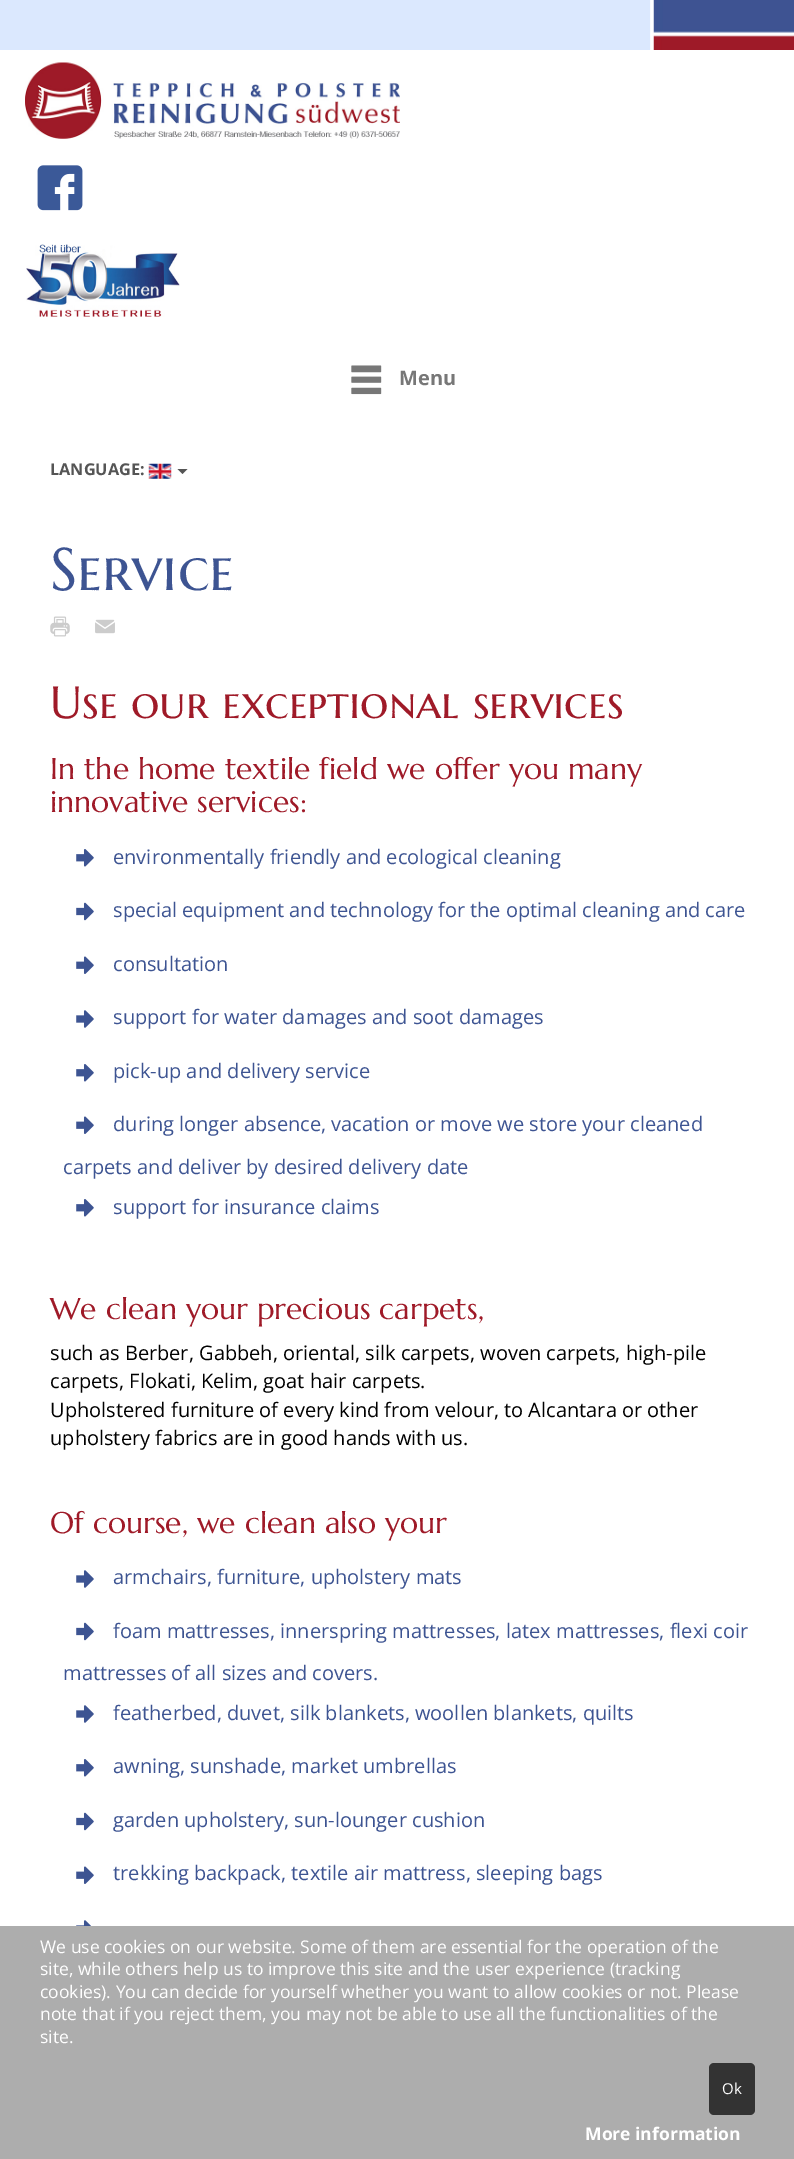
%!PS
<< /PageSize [794 2159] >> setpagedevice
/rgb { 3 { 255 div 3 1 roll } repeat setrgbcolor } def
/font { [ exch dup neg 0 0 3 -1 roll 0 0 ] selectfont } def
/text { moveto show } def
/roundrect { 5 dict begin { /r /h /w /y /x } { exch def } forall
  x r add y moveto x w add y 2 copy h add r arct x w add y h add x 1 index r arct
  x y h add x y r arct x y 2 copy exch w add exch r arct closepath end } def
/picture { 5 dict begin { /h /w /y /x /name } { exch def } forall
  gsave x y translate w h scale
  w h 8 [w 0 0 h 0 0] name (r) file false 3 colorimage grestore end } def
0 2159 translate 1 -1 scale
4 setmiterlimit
255 255 255 rgb
0 0 794 2159 rectfill
219 232 254 rgb
0 0 650 50 rectfill
(img_01.rgb) 650 0 144 50 picture
(img_02.rgb) 25 62 375 77 picture
(img_03.rgb) 37 165 46 46 picture
(img_04.rgb) 26 244 154 73 picture
(img_05.rgb) 351 365 31 30 picture
(img_06.rgb) 148 463 24 16 picture
85 85 85 rgb
177.5 469 moveto 10 0 rlineto -5 5 rlineto closepath fill
(img_07.rgb) 50 616 20 21 picture
(img_08.rgb) 95 619 20 15 picture
(img_09.rgb) 76 849 18 18 picture
(img_10.rgb) 76 902 18 19 picture
(img_11.rgb) 76 956 18 18 picture
(img_12.rgb) 76 1010 18 18 picture
(img_09.rgb) 76 1064 18 18 picture
(img_11.rgb) 76 1116 18 18 picture
(img_09.rgb) 76 1199 18 18 picture
(img_12.rgb) 76 1570 18 18 picture
(img_10.rgb) 76 1622 18 19 picture
(img_12.rgb) 76 1705 18 18 picture
(img_09.rgb) 76 1759 18 18 picture
(img_10.rgb) 76 1812 18 19 picture
(img_11.rgb) 76 1866 18 18 picture
(img_13.rgb) 76 1920 15 6 picture
173 173 173 rgb
0 1926 794 233 rectfill
51 51 51 rgb
709 2063 46 52 5 roundrect fill
/OpenSans-Bold 20 font
119 119 119 rgb
(Menu) 399 385 text
/OpenSans-Bold 16.25 font
85 85 85 rgb
(LANGUAGE:) 50 475 text
/MarcellusSC-Regular 60 font
61 84 146 rgb
(Service) 50 590 text
/MarcellusSC-Regular 45 font
159 26 40 rgb
(Use our exceptional services) 50 718 text
/Marcellus-Regular 30 font
(In the home textile field we offer you many) 50 779 text
(innovative services:) 50 812 text
/OpenSans-Regular 20 font
61 84 146 rgb
(environmentally friendly and ecological cleaning) 113 864 text
(special equipment and technology for the optimal cleaning and care) 113 917 text
(consultation) 113 971 text
(support for water damages and soot damages) 113 1024 text
(pick-up and delivery service) 113 1078 text
(during longer absence, vacation or move we store your cleaned) 113 1131 text
(carpets and deliver by desired delivery date) 63 1174 text
(support for insurance claims) 113 1214 text
/Marcellus-Regular 30 font
159 26 40 rgb
(We clean your precious carpets,) 50 1319 text
/OpenSans-Regular 20 font
0 0 0 rgb
(such as Berber, Gabbeh, oriental, silk carpets, woven carpets, high-pile) 50 1360 text
(carpets, Flokati, Kelim, goat hair carpets.) 50 1388 text
(Upholstered furniture of every kind from velour, to Alcantara or other) 50 1417 text
(upholstery fabrics are in good hands with us.) 50 1445 text
/Marcellus-Regular 30 font
159 26 40 rgb
(Of course, we clean also your) 50 1533 text
/OpenSans-Regular 20 font
61 84 146 rgb
(armchairs, furniture, upholstery mats) 113 1584 text
(foam mattresses, innerspring mattresses, latex mattresses, flexi coir) 113 1638 text
(mattresses of all sizes and covers.) 63 1680 text
(featherbed, duvet, silk blankets, woollen blankets, quilts) 113 1720 text
(awning, sunshade, market umbrellas) 113 1773 text
(garden upholstery, sun-lounger cushion) 113 1827 text
(trekking backpack, textile air mattress, sleeping bags) 113 1880 text
/OpenSans-Regular 17.5 font
255 255 255 rgb
(We use cookies on our website. Some of them are essential for the operation of the) 40 1953 text
(site, while others help us to improve this site and the user experience \(tracking) 40 1975 text
(cookies\). You can decide for yourself whether you want to allow cookies or not. Please) 40 1998 text
(note that if you reject them, you may not be able to use all the functionalities of the) 40 2020 text
(site.) 40 2043 text
/OpenSans-Regular 15 font
(Ok) 722 2094 text
/OpenSans-Bold 17.5 font
(More information) 585 2140 text
showpage
